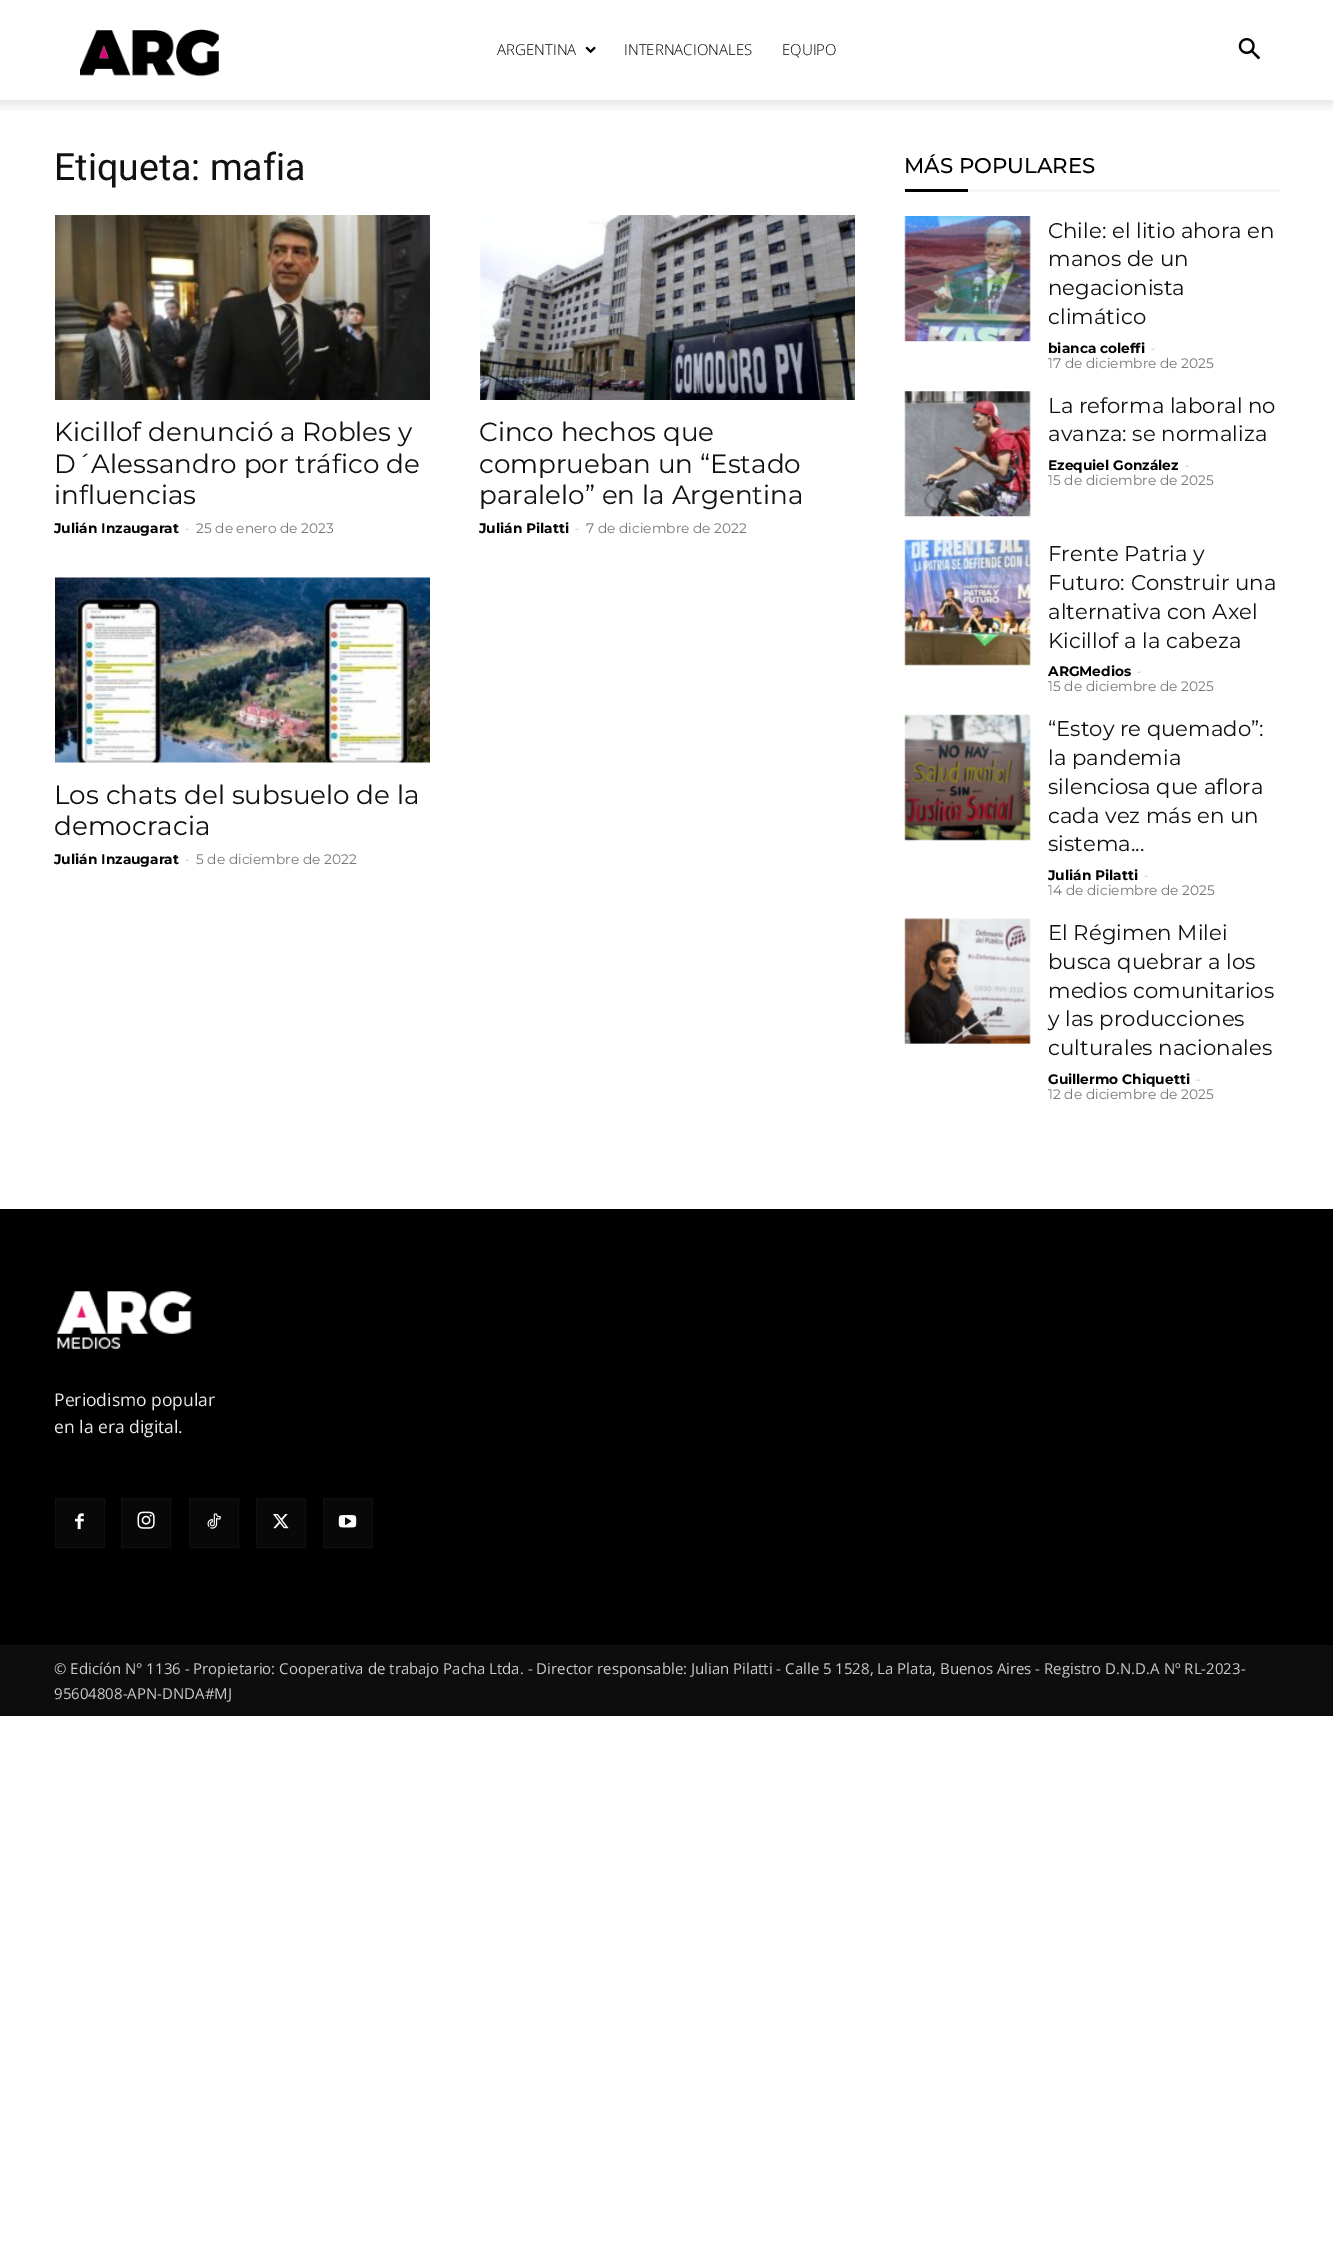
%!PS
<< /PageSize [1333 2241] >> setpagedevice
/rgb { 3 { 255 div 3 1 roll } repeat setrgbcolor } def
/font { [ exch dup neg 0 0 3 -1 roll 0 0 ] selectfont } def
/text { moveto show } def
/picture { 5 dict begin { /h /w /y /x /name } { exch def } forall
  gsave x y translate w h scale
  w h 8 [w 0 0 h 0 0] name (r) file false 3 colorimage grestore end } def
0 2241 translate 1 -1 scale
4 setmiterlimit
255 255 255 rgb
0 0 1333 2241 rectfill
(img_01.rgb) 80 29 139 48 picture
(img_02.rgb) 585 46 11 8 picture
(img_03.rgb) 1238 38 22 22 picture
(img_04.rgb) 0 100 1333 11 picture
(img_05.rgb) 55 215 375 185 picture
(img_06.rgb) 480 215 375 185 picture
(img_07.rgb) 55 577 375 186 picture
0 0 0 rgb
905 189 63 3 rectfill
245 245 245 rgb
968 189 312 3 rectfill
(img_08.rgb) 904 216 127 126 picture
(img_09.rgb) 904 391 127 126 picture
(img_10.rgb) 904 539 127 127 picture
(img_11.rgb) 904 714 127 127 picture
(img_12.rgb) 904 918 127 126 picture
0 0 0 rgb
0 1209 1333 436 rectfill
(img_13.rgb) 56 1291 136 58 picture
8 8 8 rgb
56 1499 48 48 rectfill
(img_14.rgb) 75 1513 9 17 picture
15 15 15 rgb
55.5 1498.5 49 49 rectstroke
8 8 8 rgb
122 1499 48 48 rectfill
(img_15.rgb) 137 1511 18 18 picture
15 15 15 rgb
121.5 1498.5 49 49 rectstroke
8 8 8 rgb
190 1499 48 48 rectfill
(img_16.rgb) 207 1513 14 16 picture
15 15 15 rgb
189.5 1498.5 49 49 rectstroke
8 8 8 rgb
257 1499 48 48 rectfill
(img_17.rgb) 273 1514 16 15 picture
15 15 15 rgb
256.5 1498.5 49 49 rectstroke
8 8 8 rgb
324 1499 48 48 rectfill
(img_18.rgb) 338 1515 19 13 picture
15 15 15 rgb
323.5 1498.5 49 49 rectstroke
13 13 13 rgb
0 1645 1333 71 rectfill
/OpenSans-Light 15 font
0 0 0 rgb
(ARGENTINA) 497 55 text
(INTERNACIONALES) 624 55 text
(EQUIPO) 782 55 text
/Roboto-Regular 37.5 font
17 17 17 rgb
(Etiqueta: mafia) 54 180 text
/Montserrat-Regular 26.25 font
(Kicillof denunció a Robles y) 54 441 text
(D´Alessandro por tráfico de) 54 473 text
(influencias) 54 504 text
/Montserrat-Bold 13.75 font
0 0 0 rgb
(Julián Inzaugarat) 54 533 text
/OpenSans-Regular 13.75 font
204 204 204 rgb
(-) 185 533 text
/Montserrat-Regular 13.75 font
118 118 118 rgb
(25 de enero de 2023) 196 533 text
/Montserrat-Regular 26.25 font
17 17 17 rgb
(Cinco hechos que) 479 441 text
(comprueban un “Estado) 479 473 text
(paralelo” en la Argentina) 479 504 text
/Montserrat-Bold 13.75 font
0 0 0 rgb
(Julián Pilatti) 479 533 text
/OpenSans-Regular 13.75 font
204 204 204 rgb
(-) 575 533 text
/Montserrat-Regular 13.75 font
118 118 118 rgb
(7 de diciembre de 2022) 586 533 text
/Montserrat-Regular 26.25 font
17 17 17 rgb
(Los chats del subsuelo de la) 54 804 text
(democracia) 54 835 text
/Montserrat-Bold 13.75 font
0 0 0 rgb
(Julián Inzaugarat) 54 864 text
/OpenSans-Regular 13.75 font
204 204 204 rgb
(-) 185 864 text
/Montserrat-Regular 13.75 font
118 118 118 rgb
(5 de diciembre de 2022) 196 864 text
/Montserrat-Medium 21.25 font
0 0 0 rgb
(MÁS POPULARES) 904 173 text
/Montserrat-Regular 21.25 font
17 17 17 rgb
(Chile: el litio ahora en) 1048 238 text
(manos de un) 1048 266 text
(negacionista) 1048 295 text
(climático) 1048 324 text
/Montserrat-Bold 13.75 font
0 0 0 rgb
(bianca coleffi) 1048 353 text
/OpenSans-Regular 13.75 font
204 204 204 rgb
(-) 1151 353 text
/Montserrat-Regular 13.75 font
118 118 118 rgb
(17 de diciembre de 2025) 1048 368 text
/Montserrat-Regular 21.25 font
17 17 17 rgb
(La reforma laboral no) 1048 413 text
(avanza: se normaliza) 1048 441 text
/Montserrat-Bold 13.75 font
0 0 0 rgb
(Ezequiel González) 1048 470 text
/OpenSans-Regular 13.75 font
204 204 204 rgb
(-) 1185 470 text
/Montserrat-Regular 13.75 font
118 118 118 rgb
(15 de diciembre de 2025) 1048 485 text
/Montserrat-Regular 21.25 font
17 17 17 rgb
(Frente Patria y) 1048 561 text
(Futuro: Construir una) 1048 590 text
(alternativa con Axel) 1048 619 text
(Kicillof a la cabeza) 1048 648 text
/Montserrat-Bold 13.75 font
0 0 0 rgb
(ARGMedios) 1048 676 text
/OpenSans-Regular 13.75 font
204 204 204 rgb
(-) 1137 676 text
/Montserrat-Regular 13.75 font
118 118 118 rgb
(15 de diciembre de 2025) 1048 691 text
/Montserrat-Regular 21.25 font
17 17 17 rgb
(“Estoy re quemado”:) 1048 736 text
(la pandemia) 1048 765 text
(silenciosa que aflora) 1048 794 text
(cada vez más en un) 1048 823 text
(sistema...) 1048 851 text
/Montserrat-Bold 13.75 font
0 0 0 rgb
(Julián Pilatti) 1048 880 text
/OpenSans-Regular 13.75 font
204 204 204 rgb
(-) 1144 880 text
/Montserrat-Regular 13.75 font
118 118 118 rgb
(14 de diciembre de 2025) 1048 895 text
/Montserrat-Regular 21.25 font
17 17 17 rgb
(El Régimen Milei) 1048 940 text
(busca quebrar a los) 1048 969 text
(medios comunitarios) 1048 998 text
(y las producciones) 1048 1026 text
(culturales nacionales) 1048 1055 text
/Montserrat-Bold 13.75 font
0 0 0 rgb
(Guillermo Chiquetti) 1048 1084 text
/OpenSans-Regular 13.75 font
204 204 204 rgb
(-) 1196 1084 text
/Montserrat-Regular 13.75 font
118 118 118 rgb
(12 de diciembre de 2025) 1048 1099 text
/OpenSans-Regular 17.5 font
234 234 234 rgb
(Periodismo popular) 54 1406 text
(en la era digital.) 54 1433 text
/OpenSans-Regular 15 font
204 204 204 rgb
(© Edicíón N° 1136 - Propietario: Cooperativa de trabajo Pacha Ltda. - Director responsable: Julian Pilatti - Calle 5 1528, La Plata, Buenos Aires - Registro D.N.D.A Nº RL-2023-) 54 1674 text
(95604808-APN-DNDA#MJ) 54 1699 text
showpage
